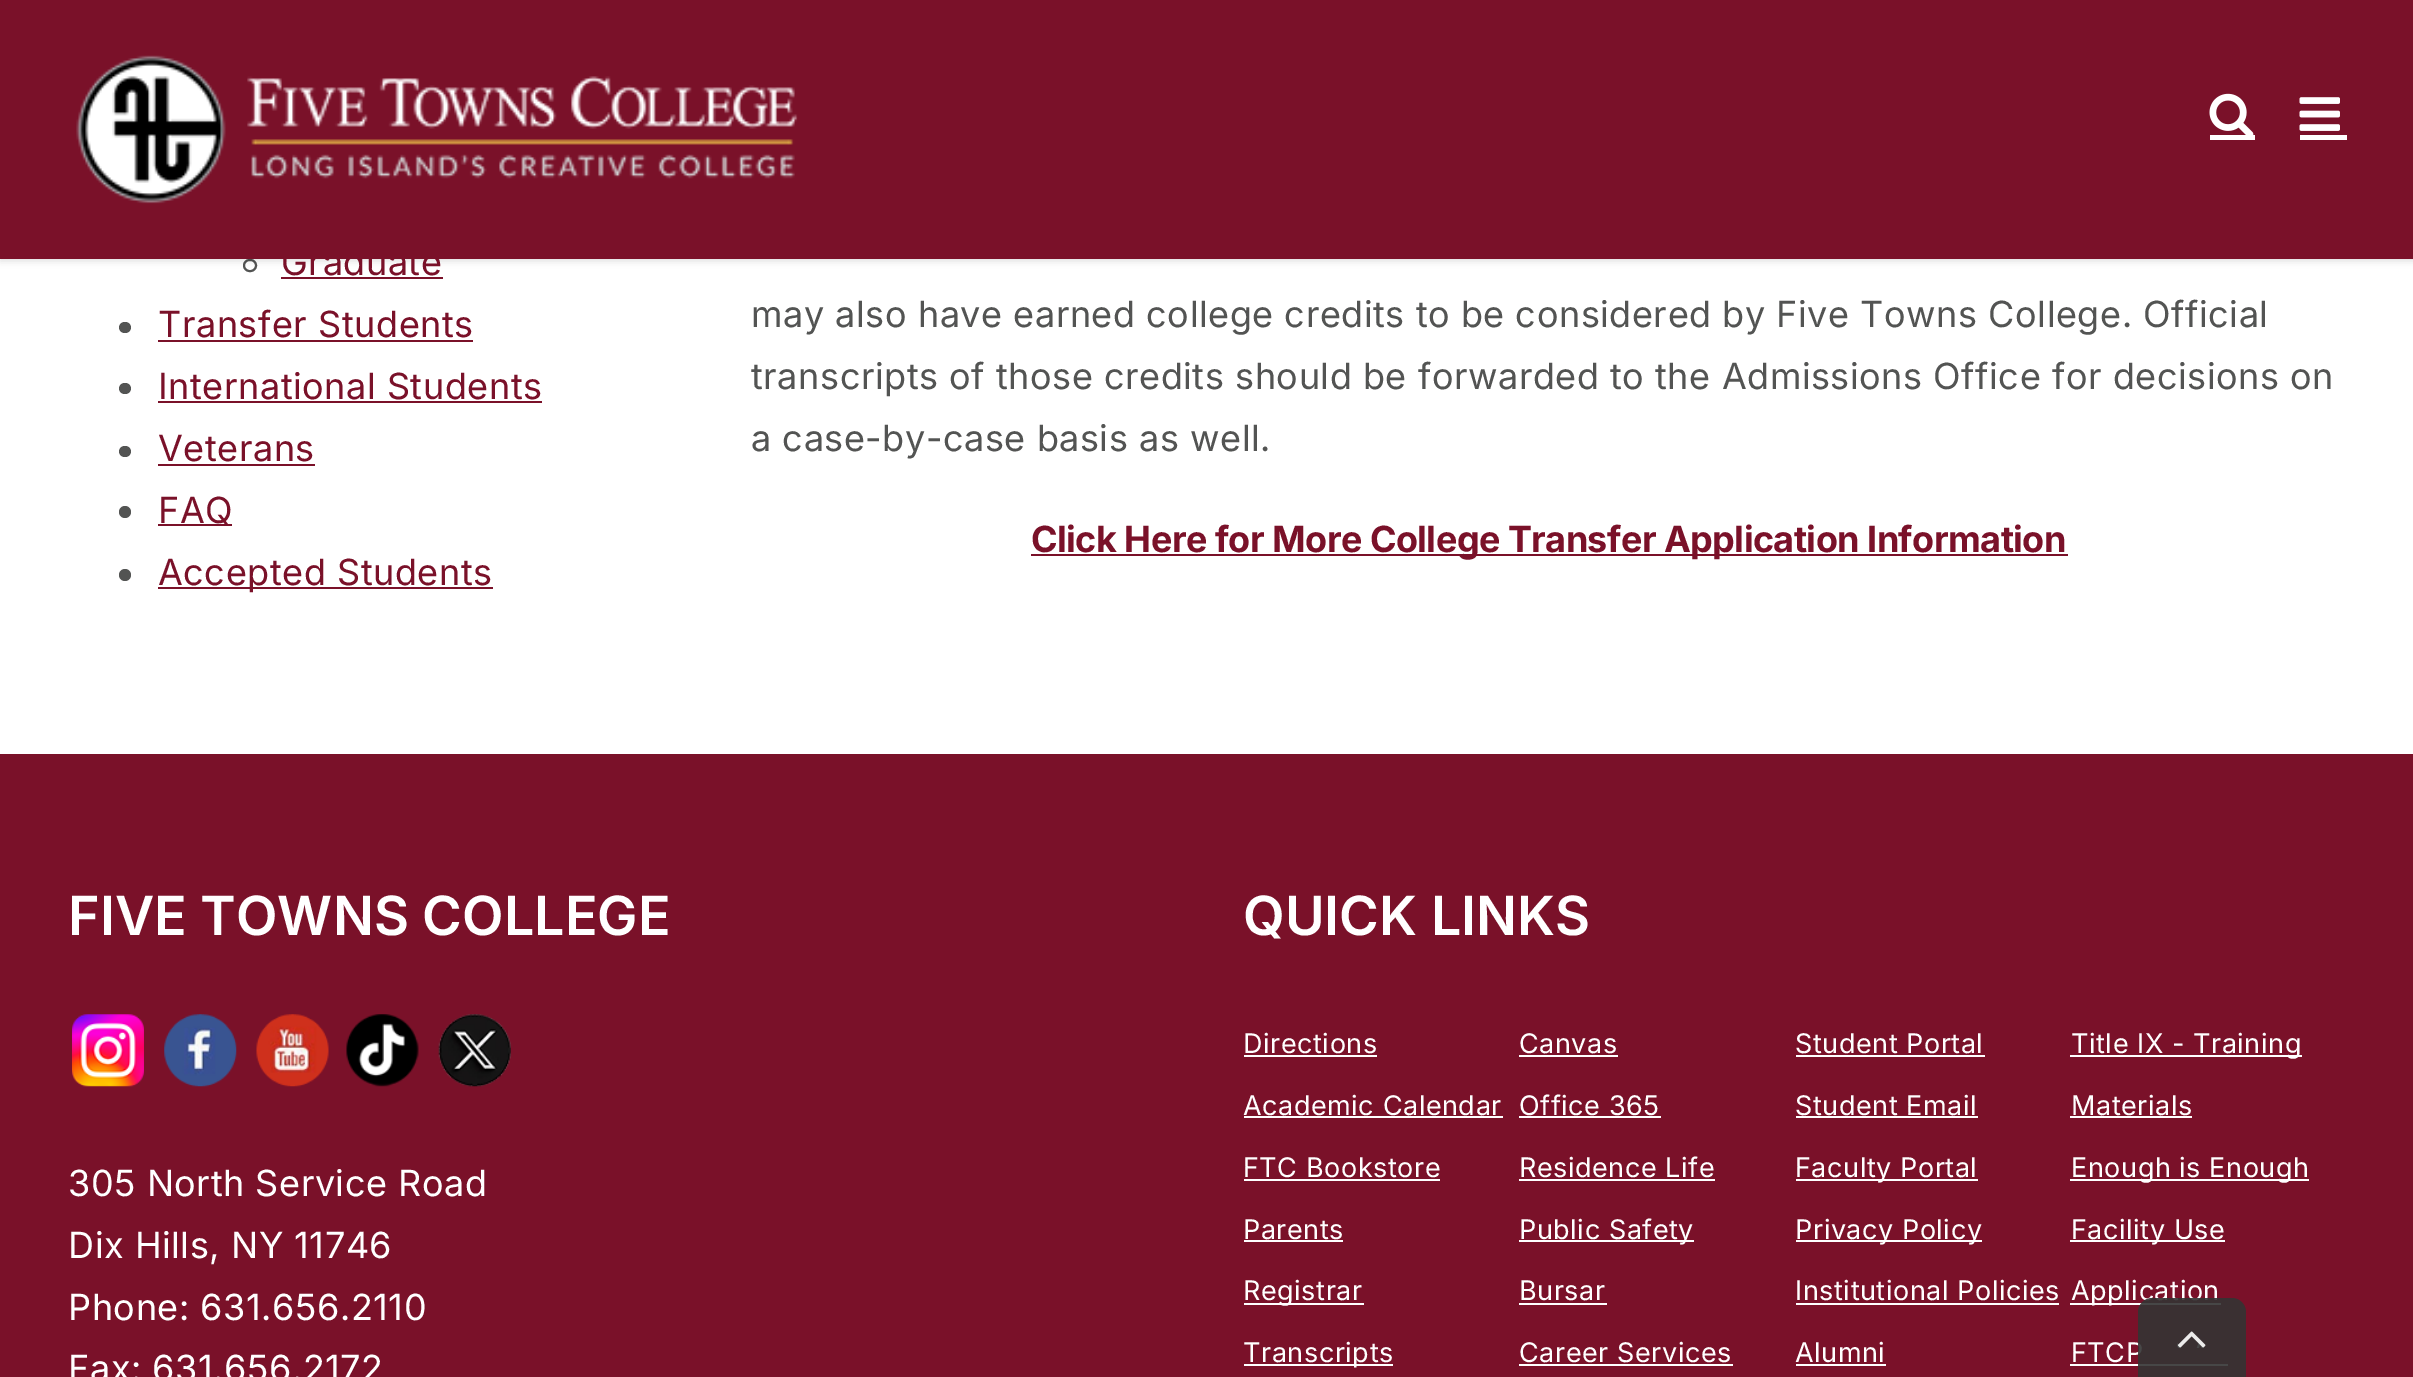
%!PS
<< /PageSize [2413 1377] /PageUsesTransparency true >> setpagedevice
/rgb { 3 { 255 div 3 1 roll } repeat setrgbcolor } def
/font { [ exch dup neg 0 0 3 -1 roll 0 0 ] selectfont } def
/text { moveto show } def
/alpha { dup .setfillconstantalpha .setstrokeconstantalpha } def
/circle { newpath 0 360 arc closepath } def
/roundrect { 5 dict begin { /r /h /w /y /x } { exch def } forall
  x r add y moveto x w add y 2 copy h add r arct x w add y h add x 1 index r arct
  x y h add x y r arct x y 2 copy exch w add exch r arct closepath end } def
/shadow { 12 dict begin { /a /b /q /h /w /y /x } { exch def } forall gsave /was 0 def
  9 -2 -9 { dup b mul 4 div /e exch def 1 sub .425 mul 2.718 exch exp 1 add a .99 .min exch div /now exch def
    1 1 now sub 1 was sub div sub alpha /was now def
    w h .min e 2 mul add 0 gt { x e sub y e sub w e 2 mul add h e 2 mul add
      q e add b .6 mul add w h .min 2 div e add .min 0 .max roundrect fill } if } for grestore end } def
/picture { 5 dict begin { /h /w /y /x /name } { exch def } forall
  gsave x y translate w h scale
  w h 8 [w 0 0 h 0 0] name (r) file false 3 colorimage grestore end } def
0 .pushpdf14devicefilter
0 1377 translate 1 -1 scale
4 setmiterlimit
255 255 255 rgb
0 0 2413 1377 rectfill
83 84 83 rgb
2 setlinewidth
244 260 12 11 5.5 roundrect stroke
0 0 0 rgb
0 2 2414 259 0 3.5 0.12 shadow
122 17 41 rgb
0 0 2413 259 rectfill
(img_01.rgb) 76 55 722 149 picture
(img_02.rgb) 2209 93 45 42 picture
255 255 255 rgb
2210 135 45 5 rectfill
(img_03.rgb) 2299 97 41 34 picture
2300 135 47 5 rectfill
122 17 41 rgb
281 277 162 2 rectfill
83 84 83 rgb
119 322 12 11 5.5 roundrect fill
122 17 41 rgb
158 340 315 2 rectfill
83 84 83 rgb
119 383 12 11 5.5 roundrect fill
122 17 41 rgb
158 401 384 2 rectfill
83 84 83 rgb
119 446 12 11 5.5 roundrect fill
122 17 41 rgb
158 464 157 2 rectfill
83 84 83 rgb
125 512 6 circle fill
122 17 41 rgb
158 524 74 2 rectfill
83 84 83 rgb
125 575 6 circle fill
122 17 41 rgb
158 587 335 2 rectfill
1031 554 1037 2 rectfill
0 754 2413 623 rectfill
(img_04.rgb) 72 1014 72 73 picture
(img_05.rgb) 164 1014 73 73 picture
(img_06.rgb) 256 1014 73 73 picture
(img_07.rgb) 346 1014 73 73 picture
(img_08.rgb) 438 1014 73 73 picture
255 255 255 rgb
1244 1055 133 2 rectfill
1244 1116 259 2 rectfill
1244 1179 196 2 rectfill
1244 1240 99 2 rectfill
1244 1303 120 2 rectfill
1244 1364 149 2 rectfill
1519 1055 99 2 rectfill
1519 1116 142 2 rectfill
1519 1179 196 2 rectfill
1519 1240 175 2 rectfill
1519 1303 88 2 rectfill
1519 1364 214 2 rectfill
1796 1055 189 2 rectfill
1796 1116 182 2 rectfill
1796 1179 182 2 rectfill
1796 1240 186 2 rectfill
1796 1303 263 2 rectfill
1796 1364 90 2 rectfill
2070 1055 232 2 rectfill
2070 1116 122 2 rectfill
2070 1179 239 2 rectfill
2070 1240 155 2 rectfill
2070 1303 151 2 rectfill
2070 1364 158 2 rectfill
/Inter-Regular 36 font
122 17 41 rgb
281 275 moveto 0.55 0 (Graduate) ashow
158 337 moveto 0.55 0 (Transfer Students) ashow
158 399 moveto 0.55 0 (International Students) ashow
158 461 moveto 0.55 0 (Veterans) ashow
158 523 moveto 0.55 0 (FAQ) ashow
158 585 moveto 0.55 0 (Accepted Students) ashow
83 84 83 rgb
751 327 moveto 0.55 0 (may also have earned college credits to be considered by Five Towns College. Official) ashow
751 389 moveto 0.55 0 (transcripts of those credits should be forwarded to the Admissions Office for decisions on) ashow
751 451 moveto 0.55 0 (a case-by-case basis as well.) ashow
/Inter-Bold 36 font
122 17 41 rgb
1031 552 moveto -0.55 0 (Click Here for More College Transfer Application Information) ashow
/Inter-SemiBold 54 font
255 255 255 rgb
(FIVE TOWNS COLLEGE) 68 935 text
/Inter-Regular 36 font
68 1196 moveto 0.55 0 (305 North Service Road) ashow
68 1258 moveto 0.55 0 (Dix Hills, NY 11746) ashow
68 1320 moveto 0.55 0 (Phone: 631.656.2110) ashow
68 1381 moveto 0.55 0 (Fax: 631.656.2172) ashow
/Inter-SemiBold 54 font
(QUICK LINKS) 1243 935 text
/Inter-Regular 27 font
1243 1053 moveto 0.55 0 (Directions) ashow
1243 1115 moveto 0.55 0 (Academic Calendar) ashow
1243 1177 moveto 0.55 0 (FTC Bookstore) ashow
1243 1239 moveto 0.55 0 (Parents) ashow
1243 1300 moveto 0.55 0 (Registrar) ashow
1243 1362 moveto 0.55 0 (Transcripts) ashow
1519 1053 moveto 0.55 0 (Canvas) ashow
1519 1115 moveto 0.55 0 (Office 365) ashow
1519 1177 moveto 0.55 0 (Residence Life) ashow
1519 1239 moveto 0.55 0 (Public Safety) ashow
1519 1300 moveto 0.55 0 (Bursar) ashow
1519 1362 moveto 0.55 0 (Career Services) ashow
1795 1053 moveto 0.55 0 (Student Portal) ashow
1795 1115 moveto 0.55 0 (Student Email) ashow
1795 1177 moveto 0.55 0 (Faculty Portal) ashow
1795 1239 moveto 0.55 0 (Privacy Policy) ashow
1795 1300 moveto 0.55 0 (Institutional Policies) ashow
1795 1362 moveto 0.55 0 (Alumni) ashow
2071 1053 moveto 0.55 0 (Title IX - Training) ashow
2071 1115 moveto 0.55 0 (Materials) ashow
2071 1177 moveto 0.55 0 (Enough is Enough) ashow
2071 1239 moveto 0.55 0 (Facility Use) ashow
2071 1300 moveto 0.55 0 (Application) ashow
2071 1362 moveto 0.55 0 (FTCP) ashow
0.9 alpha
51 51 51 rgb
2152 1298 moveto 80 0 rlineto 7.5 0 14 6.5 14 14 rcurveto 0 65 rlineto -108 0 rlineto 0 -65 rlineto 0 -7.5 6.5 -14 14 -14 rcurveto closepath fill
1 alpha
(img_09.rgb) 2177 1331 29 17 picture
.poppdf14devicefilter showpage
